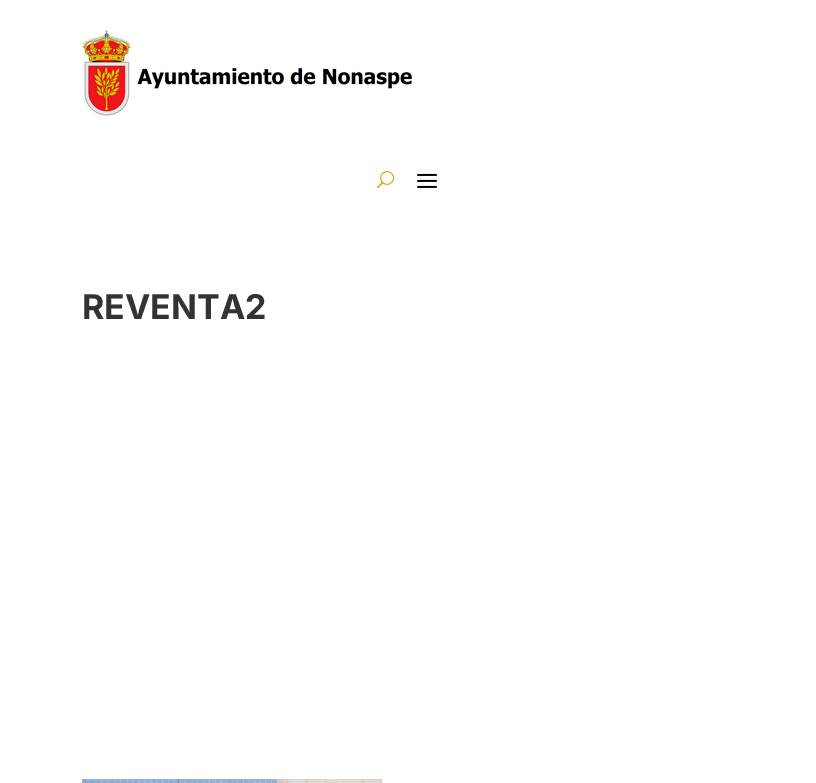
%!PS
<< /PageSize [816 783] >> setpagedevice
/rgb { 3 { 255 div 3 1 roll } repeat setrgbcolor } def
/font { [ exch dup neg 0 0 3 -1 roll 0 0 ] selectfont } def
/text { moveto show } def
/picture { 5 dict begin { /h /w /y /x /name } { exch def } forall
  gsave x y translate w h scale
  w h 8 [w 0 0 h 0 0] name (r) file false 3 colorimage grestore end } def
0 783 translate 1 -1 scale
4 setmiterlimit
255 255 255 rgb
0 0 816 783 rectfill
(img_01.rgb) 82 30 330 86 picture
(img_02.rgb) 377 171 17 18 picture
(img_03.rgb) 417 173 20 15 picture
(img_04.rgb) 82 779 300 4 picture
/Inter-Bold 34 font
51 51 51 rgb
(REVENTA2) 82 319 text
showpage
